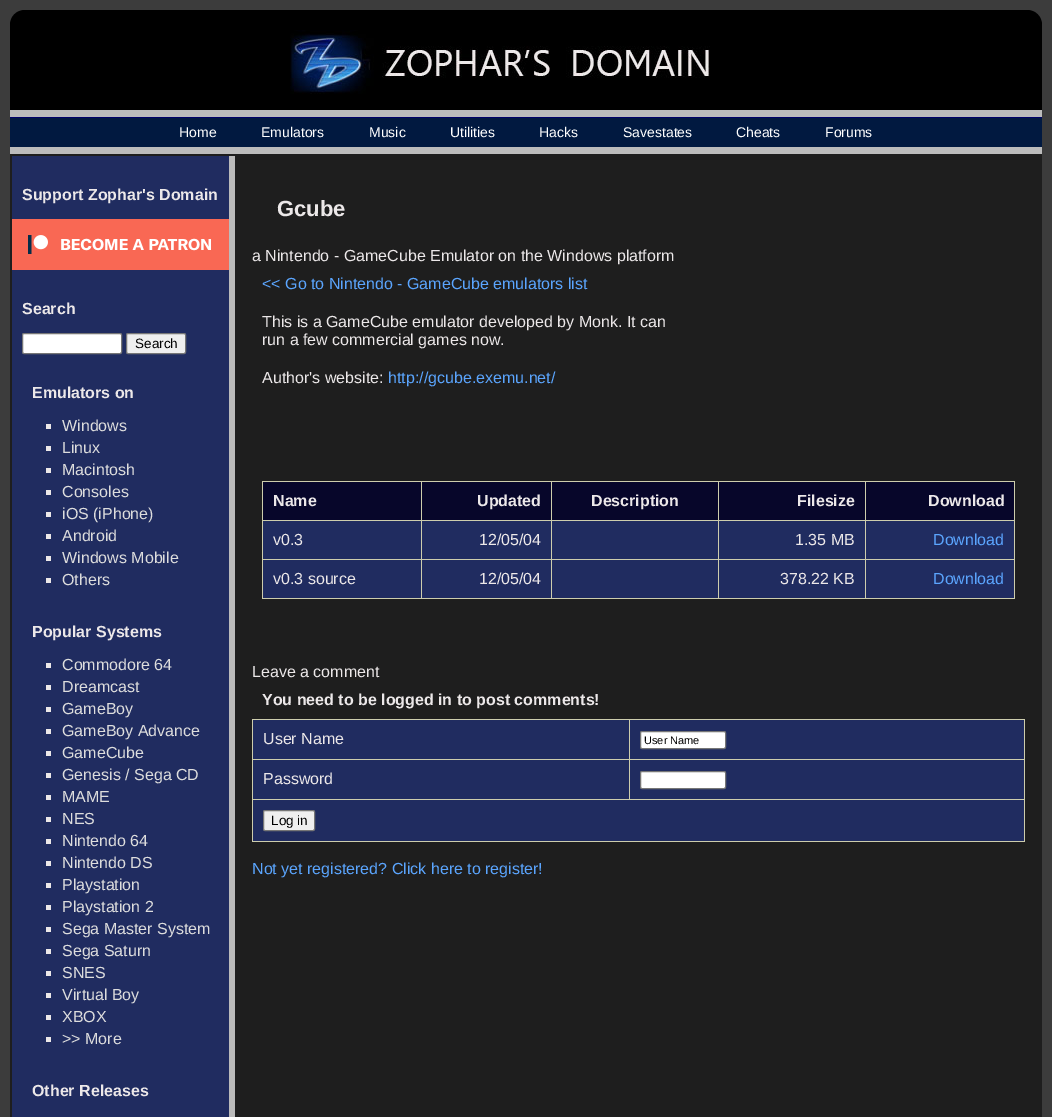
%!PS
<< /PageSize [1052 1117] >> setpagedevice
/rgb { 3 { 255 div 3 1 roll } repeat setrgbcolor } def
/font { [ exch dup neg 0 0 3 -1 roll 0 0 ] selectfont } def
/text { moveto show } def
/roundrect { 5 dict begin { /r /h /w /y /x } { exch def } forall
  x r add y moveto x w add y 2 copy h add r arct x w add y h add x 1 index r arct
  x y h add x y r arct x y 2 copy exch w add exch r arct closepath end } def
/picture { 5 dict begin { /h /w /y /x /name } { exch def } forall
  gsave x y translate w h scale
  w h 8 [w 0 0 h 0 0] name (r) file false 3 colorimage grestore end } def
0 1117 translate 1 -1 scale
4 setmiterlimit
60 60 60 rgb
0 0 1052 1117 rectfill
30 30 30 rgb
10 154 1032 963 rectfill
0 0 0 rgb
25 10 moveto 1002 0 rlineto 8.5 0 15 6.5 15 15 rcurveto 0 85 rlineto -1032 0 rlineto 0 -85 rlineto 0 -8.5 6.5 -15 15 -15 rcurveto closepath fill
(img_01.rgb) 290 30 420 64 picture
(img_02.rgb) 10 110 1032 44 picture
32 44 96 rgb
12 156 217 961 rectfill
187 187 187 rgb
229 156 6 961 rectfill
(img_03.rgb) 12 219 217 51 picture
255 255 255 rgb
22.5 333.5 99 20 1.5 roundrect gsave fill grestore
118 118 118 rgb
stroke
239 239 239 rgb
126.5 333.5 59 20 1.5 roundrect gsave fill grestore
118 118 118 rgb
stroke
236 232 233 rgb
46 424 5 5 rectfill
46 446 5 5 rectfill
46 468 5 5 rectfill
46 490 5 5 rectfill
46 512 5 5 rectfill
46 534 5 5 rectfill
46 556 5 5 rectfill
46 578 5 5 rectfill
46 663 5 5 rectfill
46 685 5 5 rectfill
46 707 5 5 rectfill
46 729 5 5 rectfill
46 751 5 5 rectfill
46 773 5 5 rectfill
46 795 5 5 rectfill
46 817 5 5 rectfill
46 839 5 5 rectfill
46 861 5 5 rectfill
46 883 5 5 rectfill
46 905 5 5 rectfill
46 927 5 5 rectfill
46 949 5 5 rectfill
46 971 5 5 rectfill
46 993 5 5 rectfill
46 1015 5 5 rectfill
46 1037 5 5 rectfill
205 205 173 rgb
262 481 753 1 rectfill
1014 481 1 118 rectfill
262 598 753 1 rectfill
262 481 1 118 rectfill
7 6 42 rgb
263 482 158 38 rectfill
422 482 129 38 rectfill
205 205 173 rgb
865 520 150 1 rectfill
865 559 150 1 rectfill
865 559 1 40 rectfill
718 559 148 1 rectfill
865 520 1 40 rectfill
718 520 148 1 rectfill
718 559 1 40 rectfill
551 559 168 1 rectfill
718 520 1 40 rectfill
551 520 168 1 rectfill
551 559 1 40 rectfill
421 559 131 1 rectfill
551 520 1 40 rectfill
421 520 131 1 rectfill
421 559 1 40 rectfill
262 559 160 1 rectfill
421 520 1 40 rectfill
262 520 160 1 rectfill
421 481 1 40 rectfill
7 6 42 rgb
552 482 166 38 rectfill
205 205 173 rgb
551 481 1 40 rectfill
7 6 42 rgb
719 482 146 38 rectfill
205 205 173 rgb
718 481 1 40 rectfill
7 6 42 rgb
866 482 148 38 rectfill
205 205 173 rgb
865 481 1 40 rectfill
32 44 96 rgb
263 521 158 38 rectfill
422 521 129 38 rectfill
552 521 166 38 rectfill
719 521 146 38 rectfill
866 521 148 38 rectfill
263 560 158 38 rectfill
422 560 129 38 rectfill
552 560 166 38 rectfill
719 560 146 38 rectfill
866 560 148 38 rectfill
205 205 173 rgb
252 719 773 1 rectfill
1024 719 1 123 rectfill
252 841 773 1 rectfill
252 719 1 123 rectfill
32 44 96 rgb
253 720 376 39 rectfill
630 720 394 39 rectfill
205 205 173 rgb
629 759 396 1 rectfill
252 799 773 1 rectfill
629 759 1 41 rectfill
252 759 378 1 rectfill
629 719 1 41 rectfill
255 255 255 rgb
640.5 731.5 85 17 1.5 roundrect gsave fill grestore
118 118 118 rgb
stroke
32 44 96 rgb
253 760 376 39 rectfill
630 760 394 39 rectfill
255 255 255 rgb
640.5 771.5 85 17 1.5 roundrect gsave fill grestore
118 118 118 rgb
stroke
32 44 96 rgb
253 800 771 41 rectfill
239 239 239 rgb
263.5 810.5 51 20 1.5 roundrect gsave fill grestore
118 118 118 rgb
stroke
/LiberationSans-Regular 14 font
255 255 255 rgb
(Home) 179 137 text
(Emulators) 261 137 text
(Music) 369 137 text
(Utilities) 450 137 text
(Hacks) 539 137 text
(Savestates) 623 137 text
(Cheats) 736 137 text
(Forums) 825 137 text
/LiberationSans-Bold 16 font
236 232 233 rgb
(Support Zophar's Domain) 22 200 text
(Search) 22 314 text
/LiberationSans-Regular 13.5 font
0 0 0 rgb
(Search) 135 348 text
/LiberationSans-Bold 16 font
236 232 233 rgb
(Emulators on) 32 398 text
/LiberationSans-Regular 16 font
221 221 221 rgb
(Windows) 62 431 text
(Linux) 62 453 text
(Macintosh) 62 475 text
(Consoles) 62 497 text
(iOS \(iPhone\)) 62 519 text
(Android) 62 541 text
(Windows Mobile) 62 563 text
(Others) 62 585 text
/LiberationSans-Bold 16 font
236 232 233 rgb
(Popular Systems) 32 637 text
/LiberationSans-Regular 16 font
221 221 221 rgb
(Commodore 64) 62 670 text
(Dreamcast) 62 692 text
(GameBoy) 62 714 text
(GameBoy Advance) 62 736 text
(GameCube) 62 758 text
(Genesis / Sega CD) 62 780 text
(MAME) 62 802 text
(NES) 62 824 text
(Nintendo 64) 62 846 text
(Nintendo DS) 62 868 text
(Playstation) 62 890 text
(Playstation 2) 62 912 text
(Sega Master System) 62 934 text
(Sega Saturn) 62 956 text
(SNES) 62 978 text
(Virtual Boy) 62 1000 text
(XBOX) 62 1022 text
(>> More) 62 1044 text
/LiberationSans-Bold 16 font
236 232 233 rgb
(Other Releases) 32 1096 text
/LiberationSans-Bold 22 font
(Gcube) 277 216 text
/LiberationSans-Regular 16 font
(a Nintendo - GameCube Emulator on the Windows platform) 252 261 text
91 165 254 rgb
(<< Go to Nintendo - GameCube emulators list) 262 289 text
236 232 233 rgb
(This is a GameCube emulator developed by Monk. It can) 262 327 text
(run a few commercial games now.) 262 345 text
(Author's website:) 262 383 text
91 165 254 rgb
(http://gcube.exemu.net/) 388 383 text
/LiberationSans-Bold 16 font
236 232 233 rgb
(Name) 273 506 text
(Updated) 477 506 text
(Description) 591 506 text
(Filesize) 797 506 text
(Download) 928 506 text
/LiberationSans-Regular 16 font
(v0.3) 273 545 text
(12/05/04) 479 545 text
(1.35 MB) 795 545 text
91 165 254 rgb
(Download) 933 545 text
236 232 233 rgb
(v0.3 source) 273 584 text
(12/05/04) 479 584 text
(378.22 KB) 780 584 text
91 165 254 rgb
(Download) 933 584 text
236 232 233 rgb
(Leave a comment) 252 677 text
/LiberationSans-Bold 16 font
(You need to be logged in to post comments!) 262 705 text
/LiberationSans-Regular 16 font
(User Name) 263 744 text
/LiberationSans-Regular 11 font
0 0 0 rgb
(User Name) 644 744 text
/LiberationSans-Regular 16 font
236 232 233 rgb
(Password) 263 784 text
/LiberationSans-Regular 13.5 font
0 0 0 rgb
(Log in) 271 825 text
/LiberationSans-Regular 16 font
91 165 254 rgb
(Not yet registered? Click here to register!) 252 874 text
showpage
